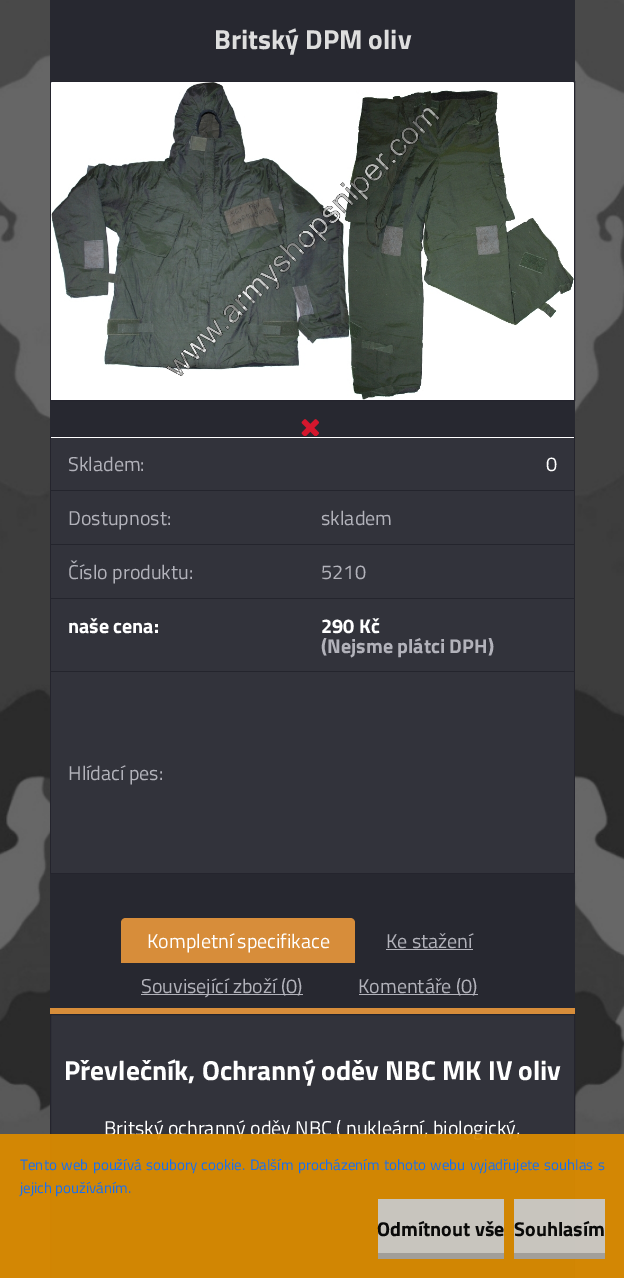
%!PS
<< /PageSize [624 1278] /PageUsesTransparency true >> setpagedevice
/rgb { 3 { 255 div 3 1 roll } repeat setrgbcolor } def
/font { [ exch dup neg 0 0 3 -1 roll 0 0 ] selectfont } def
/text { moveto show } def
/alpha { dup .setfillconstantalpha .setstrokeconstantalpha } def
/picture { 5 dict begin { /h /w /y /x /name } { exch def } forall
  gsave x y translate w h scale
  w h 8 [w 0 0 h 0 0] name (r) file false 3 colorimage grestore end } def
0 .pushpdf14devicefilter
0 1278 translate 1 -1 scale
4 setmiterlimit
255 255 255 rgb
0 0 624 1278 rectfill
(img_01.rgb) 0 0 624 1278 picture
39 40 48 rgb
50 0 525 1008 rectfill
36 36 45 rgb
50.5 81.5 524 319 rectstroke
255 255 255 rgb
51 83 523 317 rectfill
(img_02.rgb) 51 82 523 318 picture
(img_03.rgb) 301 419 18 17 picture
51 437 523 1 rectfill
36 36 45 rgb
50 436 525 1 rectfill
574 436 1 438 rectfill
50 873 525 1 rectfill
50 436 1 438 rectfill
50 51 59 rgb
51 438 523 52 rectfill
51 491 523 53 rectfill
36 37 45 rgb
50 490 525 1 rectfill
50 51 59 rgb
51 545 523 53 rectfill
36 37 45 rgb
50 544 525 1 rectfill
50 51 59 rgb
51 599 523 274 rectfill
36 37 45 rgb
50 598 525 1 rectfill
50 671 525 1 rectfill
215 141 58 rgb
50 1008 525 6 rectfill
126 918 moveto 224 0 rlineto 3 0 5 2 5 5 rcurveto 0 40 rlineto -234 0 rlineto 0 -40 rlineto 0 -3 2 -5 5 -5 rcurveto closepath fill
178 178 186 rgb
386 949 87 1 rectfill
141 994 162 1 rectfill
359 994 119 1 rectfill
50 51 59 rgb
50.5 1014.5 moveto 524 0 rlineto 0 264 rlineto -524 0 rlineto closepath gsave fill grestore
36 36 45 rgb
stroke
/TitilliumWeb-Bold 27.5 font
222 222 222 rgb
(Britský DPM oliv) 214 49 text
/TitilliumWeb-Regular 20 font
178 178 186 rgb
(Skladem:) 68 471 text
255 255 255 rgb
(0) 546 471 text
178 178 186 rgb
(Dostupnost:) 68 525 text
(skladem) 321 525 text
(Číslo produktu:) 68 579 text
(5210) 321 579 text
/TitilliumWeb-Bold 20 font
255 255 255 rgb
(naše cena:) 68 633 text
(290 Kč) 321 633 text
178 178 186 rgb
(\(Nejsme plátci DPH\)) 321 653 text
/TitilliumWeb-Regular 20 font
(Hlídací pes:) 68 780 text
255 255 255 rgb
(Kompletní specifikace) 147 948 text
178 178 186 rgb
(Ke stažení) 386 948 text
(Související zboží \(0\)) 141 993 text
(Komentáře \(0\)) 358 993 text
/TitilliumWeb-Bold 27.5 font
255 255 255 rgb
(Převlečník, Ochranný oděv NBC MK IV oliv) 64 1080 text
/TitilliumWeb-Regular 20 font
(Britský ochranný oděv NBC \( nukleární, biologický,) 104 1135 text
0.95 alpha
218 138 0 rgb
0 1134 624 144 rectfill
/TitilliumWeb-Regular 15 font
1 alpha
23 111 241 rgb
20 1170 moveto 1.25 0 32 (Tento web používá soubory cookie. Dalším procházením tohoto webu vyjadřujete souhlas s) widthshow
(jejich používáním.) 20 1193 text
0.95 alpha
200 200 200 rgb
378 1199 126 54 rectfill
1 alpha
161 158 153 rgb
378 1253 126 6 rectfill
/TitilliumWeb-Bold 20 font
10 10 9 rgb
(Odmítnout vše) 377 1236 text
0.95 alpha
200 200 200 rgb
514 1199 91 54 rectfill
1 alpha
162 159 154 rgb
514 1253 91 6 rectfill
10 10 9 rgb
(Souhlasím) 514 1236 text
.poppdf14devicefilter showpage
